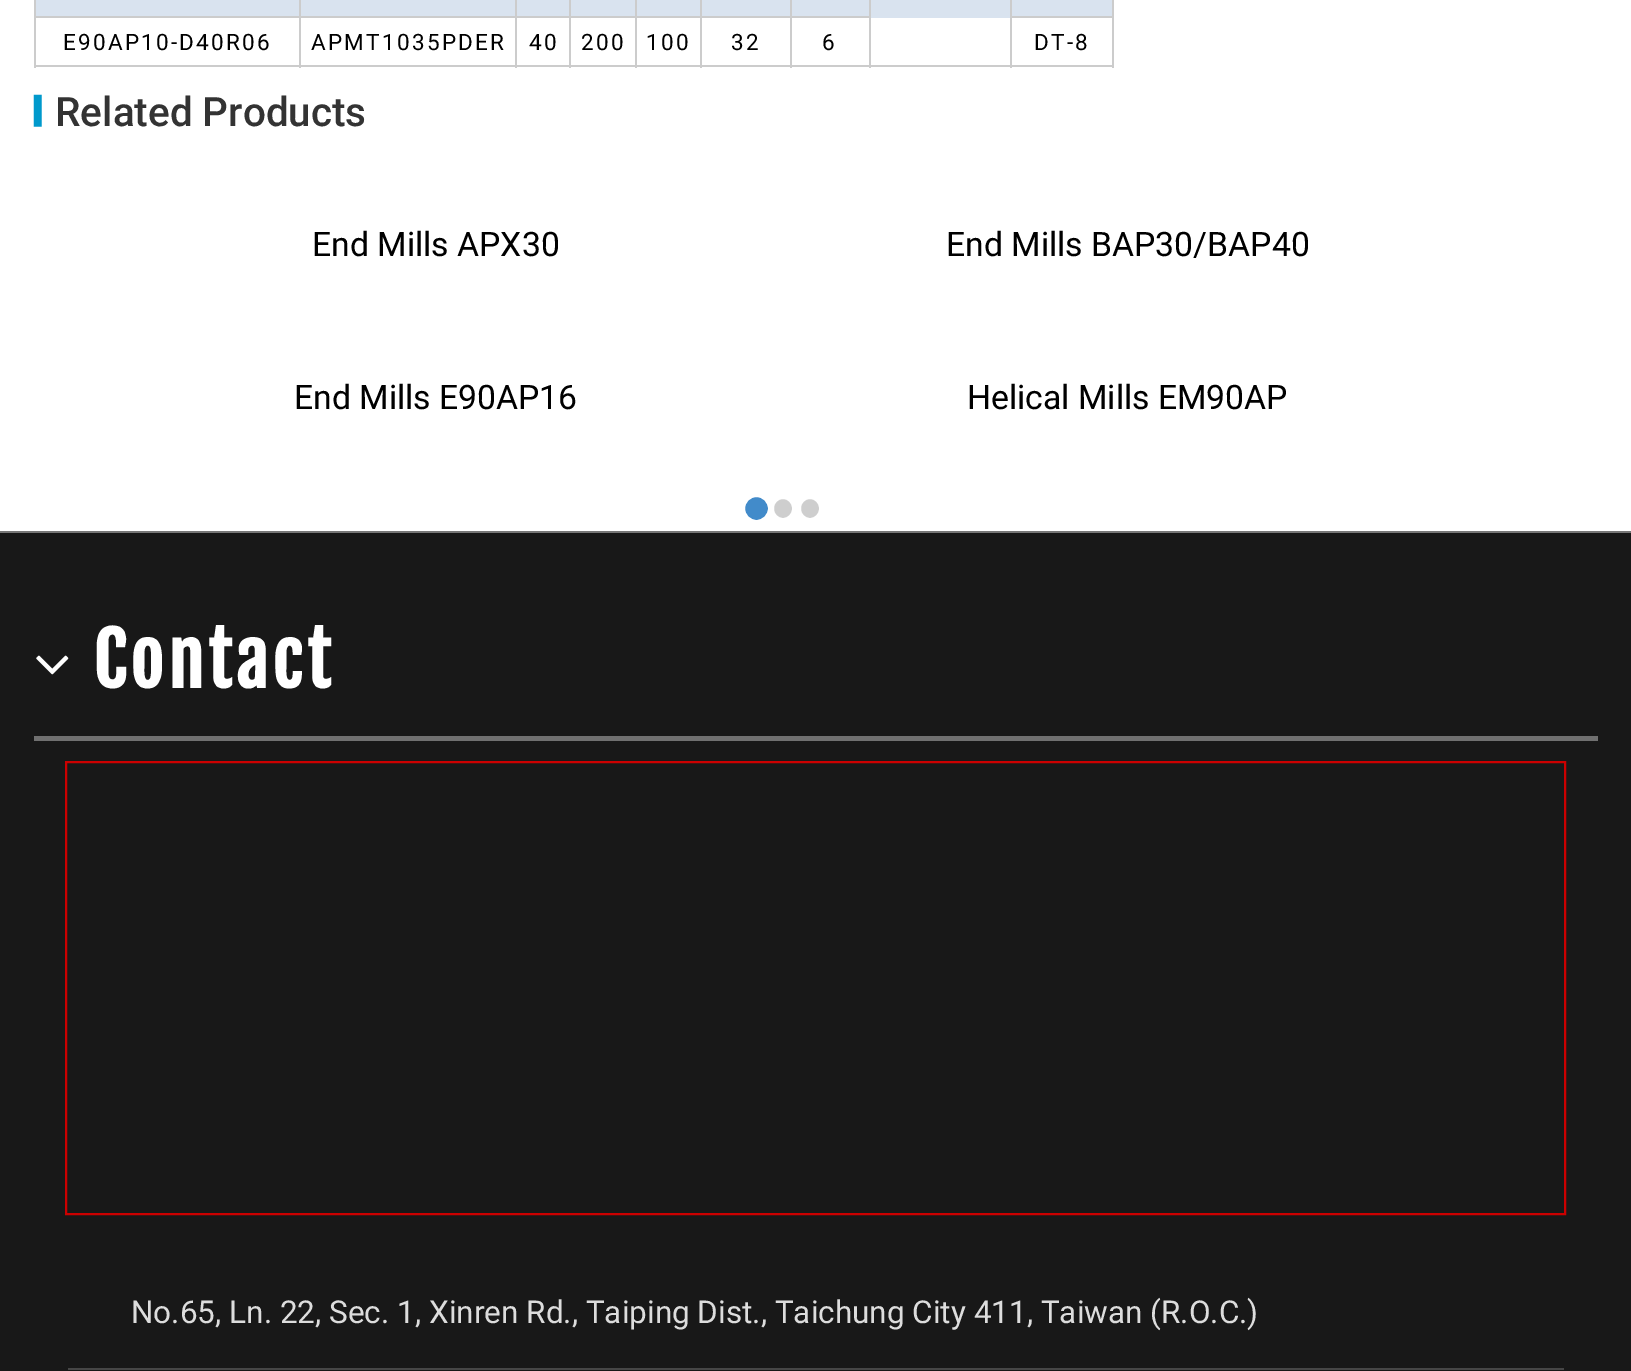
%!PS
<< /PageSize [1631 1371] >> setpagedevice
/rgb { 3 { 255 div 3 1 roll } repeat setrgbcolor } def
/font { [ exch dup neg 0 0 3 -1 roll 0 0 ] selectfont } def
/text { moveto show } def
/circle { newpath 0 360 arc closepath } def
/roundrect { 5 dict begin { /r /h /w /y /x } { exch def } forall
  x r add y moveto x w add y 2 copy h add r arct x w add y h add x 1 index r arct
  x y h add x y r arct x y 2 copy exch w add exch r arct closepath end } def
/picture { 5 dict begin { /h /w /y /x /name } { exch def } forall
  gsave x y translate w h scale
  w h 8 [w 0 0 h 0 0] name (r) file false 3 colorimage grestore end } def
0 1371 translate 1 -1 scale
4 setmiterlimit
255 255 255 rgb
0 0 1631 1371 rectfill
204 204 204 rgb
34 0 2 68 rectfill
217 227 239 rgb
36 0 1076 18 rectfill
204 204 204 rgb
869 0 2 68 rectfill
790 65 81 2 rectfill
790 16 2 52 rectfill
790 16 81 2 rectfill
790 0 2 18 rectfill
700 65 92 2 rectfill
700 16 2 52 rectfill
700 16 92 2 rectfill
700 0 2 18 rectfill
635 65 67 2 rectfill
635 16 2 52 rectfill
635 16 67 2 rectfill
635 0 2 18 rectfill
569 65 68 2 rectfill
569 16 2 52 rectfill
569 16 68 2 rectfill
569 0 2 18 rectfill
515 65 57 2 rectfill
515 16 2 52 rectfill
515 16 57 2 rectfill
515 0 2 18 rectfill
299 65 219 2 rectfill
299 16 2 52 rectfill
299 16 219 2 rectfill
299 0 2 18 rectfill
34 16 268 2 rectfill
1112 0 2 68 rectfill
1010 16 104 2 rectfill
1010 65 104 2 rectfill
1010 0 2 68 rectfill
869 65 144 2 rectfill
34 65 268 2 rectfill
66 139 202 rgb
756.5 508.5 12.5 circle gsave fill grestore
255 255 255 rgb
2 setlinewidth
stroke
206 206 206 rgb
773 498 20 21 10 roundrect gsave fill grestore
255 255 255 rgb
stroke
206 206 206 rgb
800 498 20 21 10 roundrect gsave fill grestore
255 255 255 rgb
stroke
119 119 119 rgb
0 531 1631 2 rectfill
24 24 24 rgb
0 533 1631 838 rectfill
112 112 112 rgb
34 736 1564 5 rectfill
(img_01.rgb) 36 655 33 20 picture
204 0 0 rgb
66 762 1499 452 rectstroke
70 70 70 rgb
68 1368 1496 2 rectfill
/Roboto-Regular 22.5 font
0 0 0 rgb
63 50 moveto 2.25 0 (E90AP10-D40R06) ashow
311 50 moveto 2.25 0 (APMT1035PDER) ashow
529 50 moveto 2.25 0 (40) ashow
581 50 moveto 2.25 0 (200) ashow
646 50 moveto 2.25 0 (100) ashow
731 50 moveto 2.25 0 (32) ashow
822 50 moveto 2.25 0 (6) ashow
1034 50 moveto 2.25 0 (DT-8) ashow
/DejaVuSans-Regular 27 font
0 153 204 rgb
(▍) 34 120 text
/Roboto-Medium 40.5 font
51 51 51 rgb
(Related Products) 55 126 text
/Roboto-Regular 33.75 font
0 0 0 rgb
(End Mills APX30) 312 256 text
(End Mills BAP30/BAP40) 946 256 text
(End Mills E90AP16) 294 409 text
(Helical Mills EM90AP) 967 409 text
/FjallaOne-Bold 72 font
255 255 255 rgb
93 688 moveto 4.5 0 (Contact) ashow
/Roboto-Regular 31.5 font
221 221 221 rgb
(No.65, Ln. 22, Sec. 1, Xinren Rd., Taiping Dist., Taichung City 411, Taiwan \(R.O.C.\)) 131 1323 text
showpage
